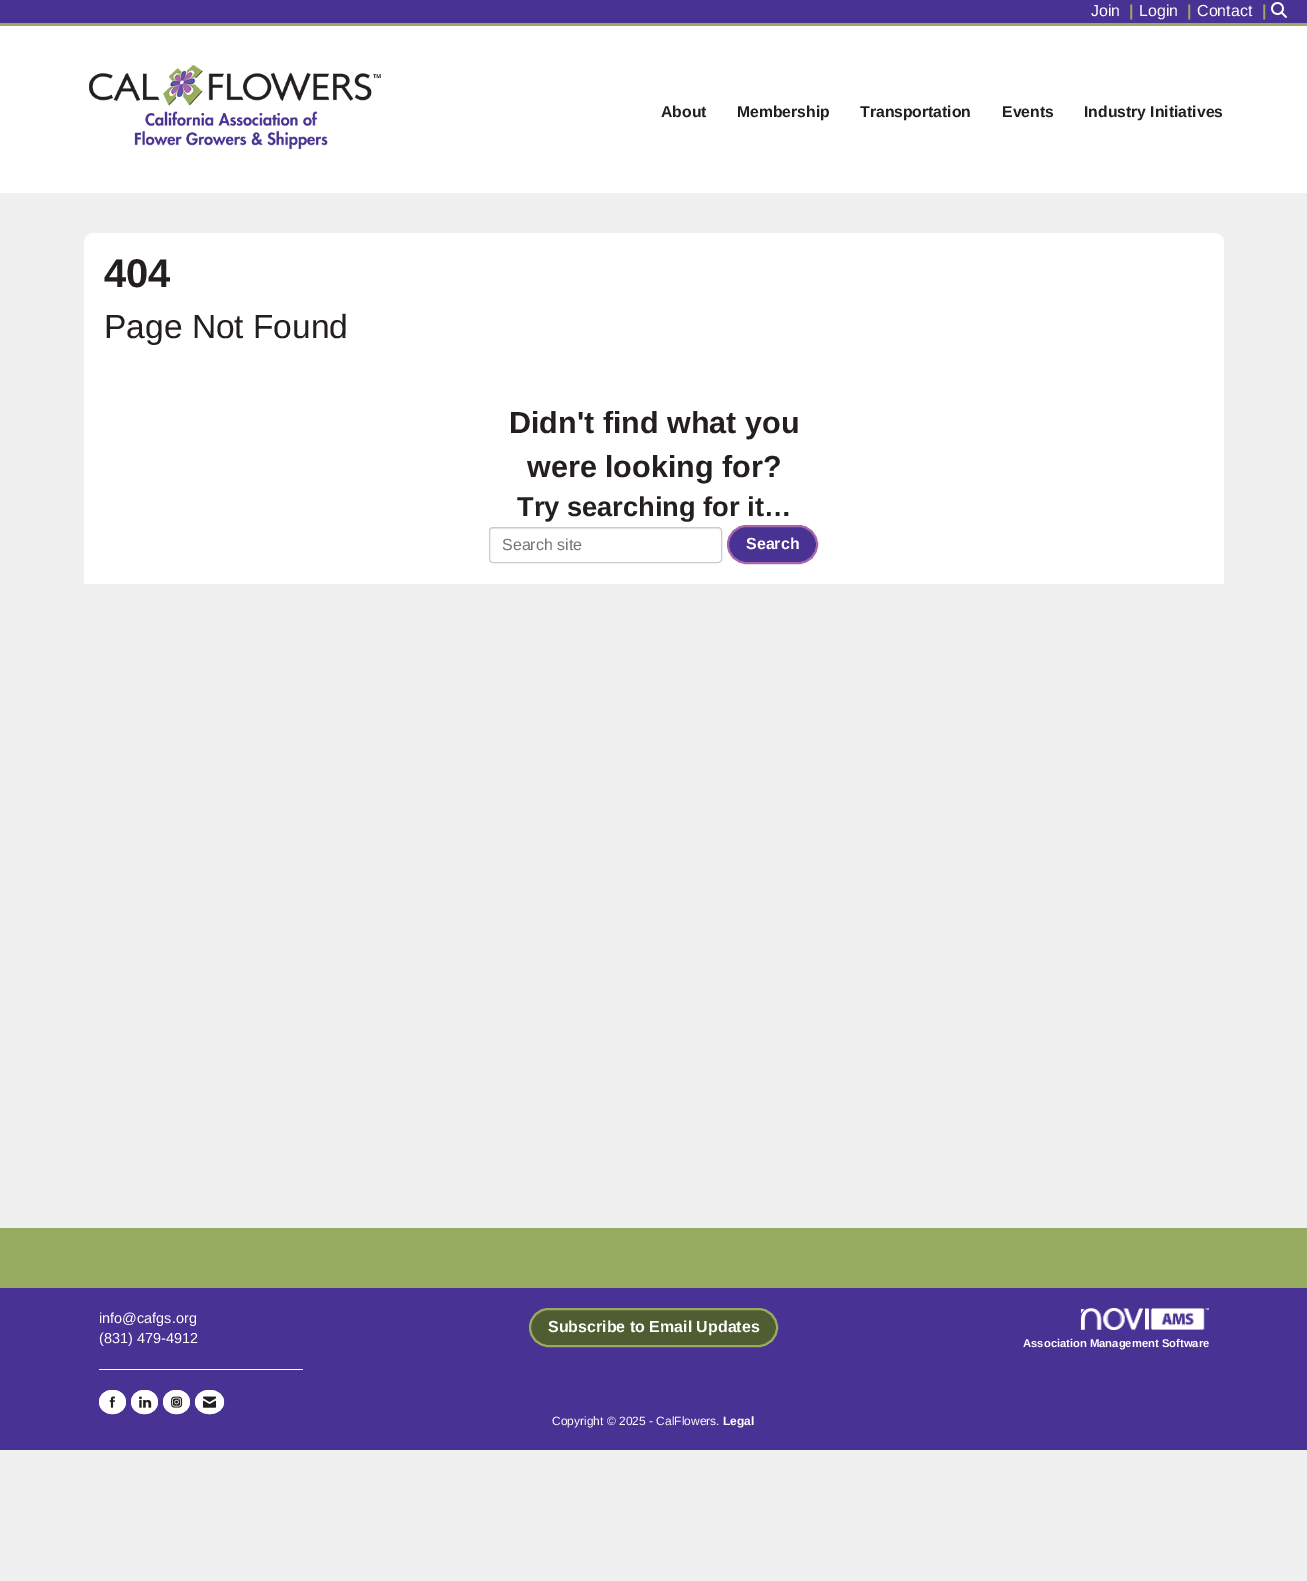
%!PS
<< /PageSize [1307 1581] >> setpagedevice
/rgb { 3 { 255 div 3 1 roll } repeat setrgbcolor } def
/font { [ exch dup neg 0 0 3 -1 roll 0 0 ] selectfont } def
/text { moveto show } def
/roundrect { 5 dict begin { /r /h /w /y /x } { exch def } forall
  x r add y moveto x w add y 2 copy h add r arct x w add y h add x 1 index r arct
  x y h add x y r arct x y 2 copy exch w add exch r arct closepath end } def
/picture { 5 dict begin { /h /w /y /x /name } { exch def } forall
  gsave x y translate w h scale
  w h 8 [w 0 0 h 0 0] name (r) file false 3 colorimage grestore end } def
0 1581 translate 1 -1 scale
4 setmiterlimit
240 240 240 rgb
0 0 1307 1581 rectfill
72 50 147 rgb
0 0 1307 23 rectfill
151 172 96 rgb
0 23 1307 3 rectfill
(img_01.rgb) 1271 2 16 16 picture
255 255 255 rgb
0 26 1307 167 rectfill
(img_02.rgb) 89 64 292 86 picture
94 233 moveto 1120 0 rlineto 5.5 0 10 4.5 10 10 rcurveto 0 133 rlineto -1140 0 rlineto 0 -133 rlineto 0 -5.5 4.5 -10 10 -10 rcurveto closepath fill
84 376 1140 208 rectfill
236 236 236 rgb
493 529 moveto 225 0 rlineto 2 0 3 1 3 3 rcurveto 0 -2 -1 -4 -3 -4 rcurveto -225 0 rlineto -2 0 -3 2 -3 4 rcurveto 0 -2 1 -3 3 -3 rcurveto closepath fill
204 204 204 rgb
489.5 527.5 232 35 3.5 roundrect stroke
72 50 147 rgb
728 526 89 37 18.5 roundrect gsave fill grestore
169 103 170 rgb
2 setlinewidth
stroke
151 172 96 rgb
0 1228 1307 60 rectfill
72 50 147 rgb
0 1288 1307 162 rectfill
255 255 255 rgb
99 1369 204 1 rectfill
112.5 1390 moveto 7.5 0 13.5 5.5 13.5 12 rcurveto 0 6.5 -6 12 -13.5 12 rcurveto -7.5 0 -13.5 -5.5 -13.5 -12 rcurveto 0 -6.5 6 -12 13.5 -12 rcurveto closepath fill
112.5 1391 moveto 16.5 0 16.5 22 0 22 rcurveto -16.5 0 -16.5 -22 0 -22 rcurveto closepath stroke
(img_03.rgb) 109 1396 7 12 picture
144.5 1390 moveto 7.5 0 13.5 5.5 13.5 12 rcurveto 0 6.5 -6 12 -13.5 12 rcurveto -7.5 0 -13.5 -5.5 -13.5 -12 rcurveto 0 -6.5 6 -12 13.5 -12 rcurveto closepath fill
144.5 1391 moveto 16.5 0 16.5 22 0 22 rcurveto -16.5 0 -16.5 -22 0 -22 rcurveto closepath stroke
(img_04.rgb) 139 1396 13 12 picture
176.5 1390 moveto 7.5 0 13.5 5.5 13.5 12 rcurveto 0 6.5 -6 12 -13.5 12 rcurveto -7.5 0 -13.5 -5.5 -13.5 -12 rcurveto 0 -6.5 6 -12 13.5 -12 rcurveto closepath fill
176.5 1391 moveto 16.5 0 16.5 22 0 22 rcurveto -16.5 0 -16.5 -22 0 -22 rcurveto closepath stroke
(img_05.rgb) 171 1396 12 12 picture
209.5 1390 moveto 8 0 14.5 5.5 14.5 12 rcurveto 0 6.5 -6.5 12 -14.5 12 rcurveto -8 0 -14.5 -5.5 -14.5 -12 rcurveto 0 -6.5 6.5 -12 14.5 -12 rcurveto closepath fill
209.5 1391 moveto 18 0 18 22 0 22 rcurveto -18 0 -18 -22 0 -22 rcurveto closepath stroke
(img_06.rgb) 203 1396 14 12 picture
80 92 50 rgb
530 1309 247 37 18.5 roundrect gsave fill grestore
151 172 96 rgb
stroke
(img_07.rgb) 1081 1308 128 22 picture
/LiberationSans-Regular 16 font
255 255 255 rgb
(Join) 1091 16 text
/LiberationSans-Bold 16 font
151 172 96 rgb
(|) 1129 16 text
/LiberationSans-Regular 16 font
255 255 255 rgb
(Login) 1139 16 text
/LiberationSans-Bold 16 font
151 172 96 rgb
(|) 1187 16 text
/LiberationSans-Regular 16 font
255 255 255 rgb
(Contact) 1197 16 text
/LiberationSans-Bold 16 font
151 172 96 rgb
(|) 1262 16 text
/LiberationSans-Bold 15.75 font
35 31 32 rgb
(About) 661 117 text
(Membership) 737 117 text
(Transportation) 860 117 text
(Events) 1002 117 text
(Industry Initiatives) 1084 117 text
/LiberationSans-Bold 40 font
(404) 104 287 text
/LiberationSans-Regular 33.5 font
(Page Not Found) 104 338 text
/LiberationSans-Bold 30.5 font
(Didn't find what you) 509 433 text
(were looking for?) 527 477 text
/LiberationSans-Bold 27.25 font
(Try searching for it…) 517 516 text
/LiberationSans-Regular 16 font
117 117 117 rgb
(Search site) 502 550 text
/LiberationSans-Bold 16 font
255 255 255 rgb
(Search) 746 549 text
/LiberationSans-Regular 14.5 font
(info@cafgs.org) 99 1323 text
(\(831\) 479-4912) 99 1343 text
/LiberationSans-Bold 16 font
(Subscribe to Email Updates) 548 1332 text
/LiberationSans-Bold 11.25 font
(Association Management Software) 1023 1347 text
/LiberationSans-Regular 12 font
(Copyright © 2025 - CalFlowers.) 552 1425 text
/LiberationSans-Bold 12 font
(Legal) 723 1425 text
showpage
